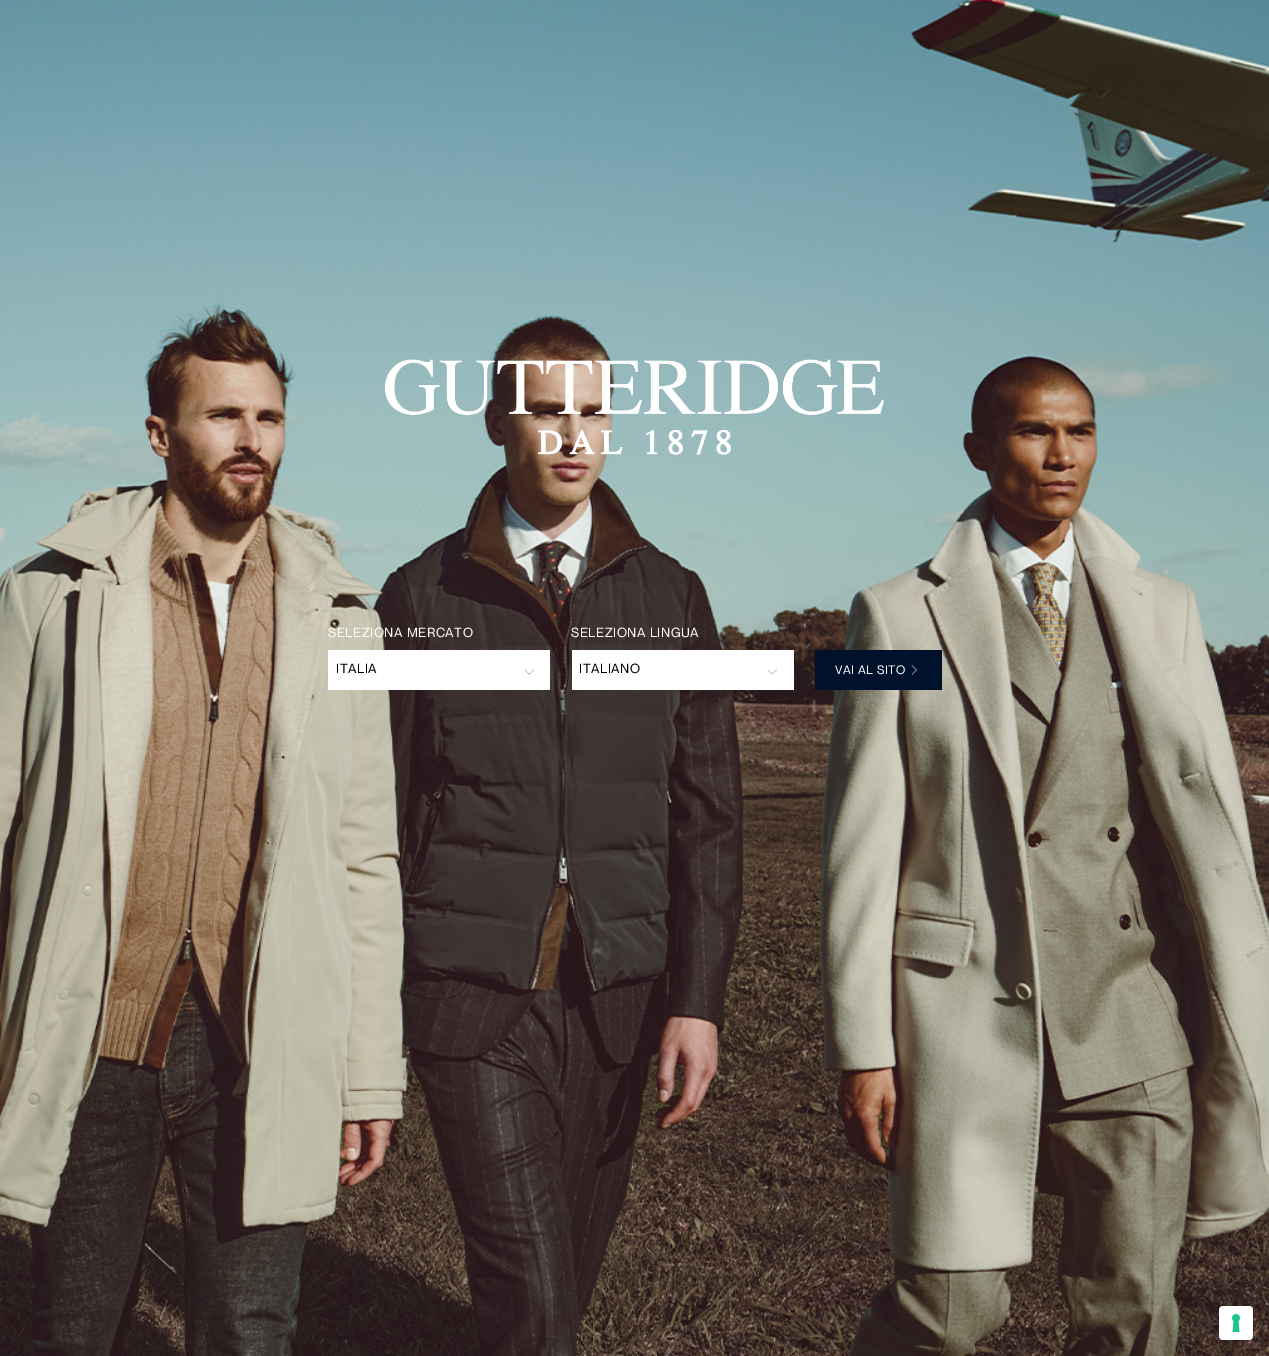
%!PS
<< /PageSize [1269 1356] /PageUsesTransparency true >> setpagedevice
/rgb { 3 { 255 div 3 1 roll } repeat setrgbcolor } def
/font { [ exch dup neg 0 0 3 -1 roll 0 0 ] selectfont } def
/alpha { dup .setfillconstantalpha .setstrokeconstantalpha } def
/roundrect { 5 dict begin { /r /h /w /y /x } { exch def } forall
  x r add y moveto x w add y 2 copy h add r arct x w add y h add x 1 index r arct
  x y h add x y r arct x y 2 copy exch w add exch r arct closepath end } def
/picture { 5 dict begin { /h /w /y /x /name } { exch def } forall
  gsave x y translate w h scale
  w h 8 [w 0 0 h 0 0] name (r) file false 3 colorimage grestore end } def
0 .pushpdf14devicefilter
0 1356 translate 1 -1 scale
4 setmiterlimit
255 255 255 rgb
0 0 1269 1356 rectfill
(img_01.rgb) 0 0 1269 1356 picture
(img_02.rgb) 385 359 499 96 picture
328 650 222 40 rectfill
(img_03.rgb) 524 669 10 6 picture
572 650 222 40 rectfill
(img_03.rgb) 767 669 10 6 picture
0 17 43 rgb
815 650 127 40 rectfill
(img_04.rgb) 911 665 6 10 picture
0.15 alpha
0 0 0 rgb
1218.5 1305.5 35 35 4.5 roundrect stroke
1 alpha
255 255 255 rgb
1219 1306 34 34 4 roundrect fill
(img_05.rgb) 1232 1314 8 18 picture
/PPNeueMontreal-Regular 13 font
328 637 moveto 0.6 0 (SELEZIONA MERCATO) ashow
0 0 0 rgb
336 673 moveto 0.6 0 (ITALIA) ashow
255 255 255 rgb
571 637 moveto 0.6 0 (SELEZIONA LINGUA) ashow
0 0 0 rgb
579 673 moveto 0.6 0 (ITALIANO) ashow
/PPNeueMontreal-Regular 12 font
255 255 255 rgb
835 674 moveto 0.6 0 (VAI AL SITO) ashow
.poppdf14devicefilter showpage
